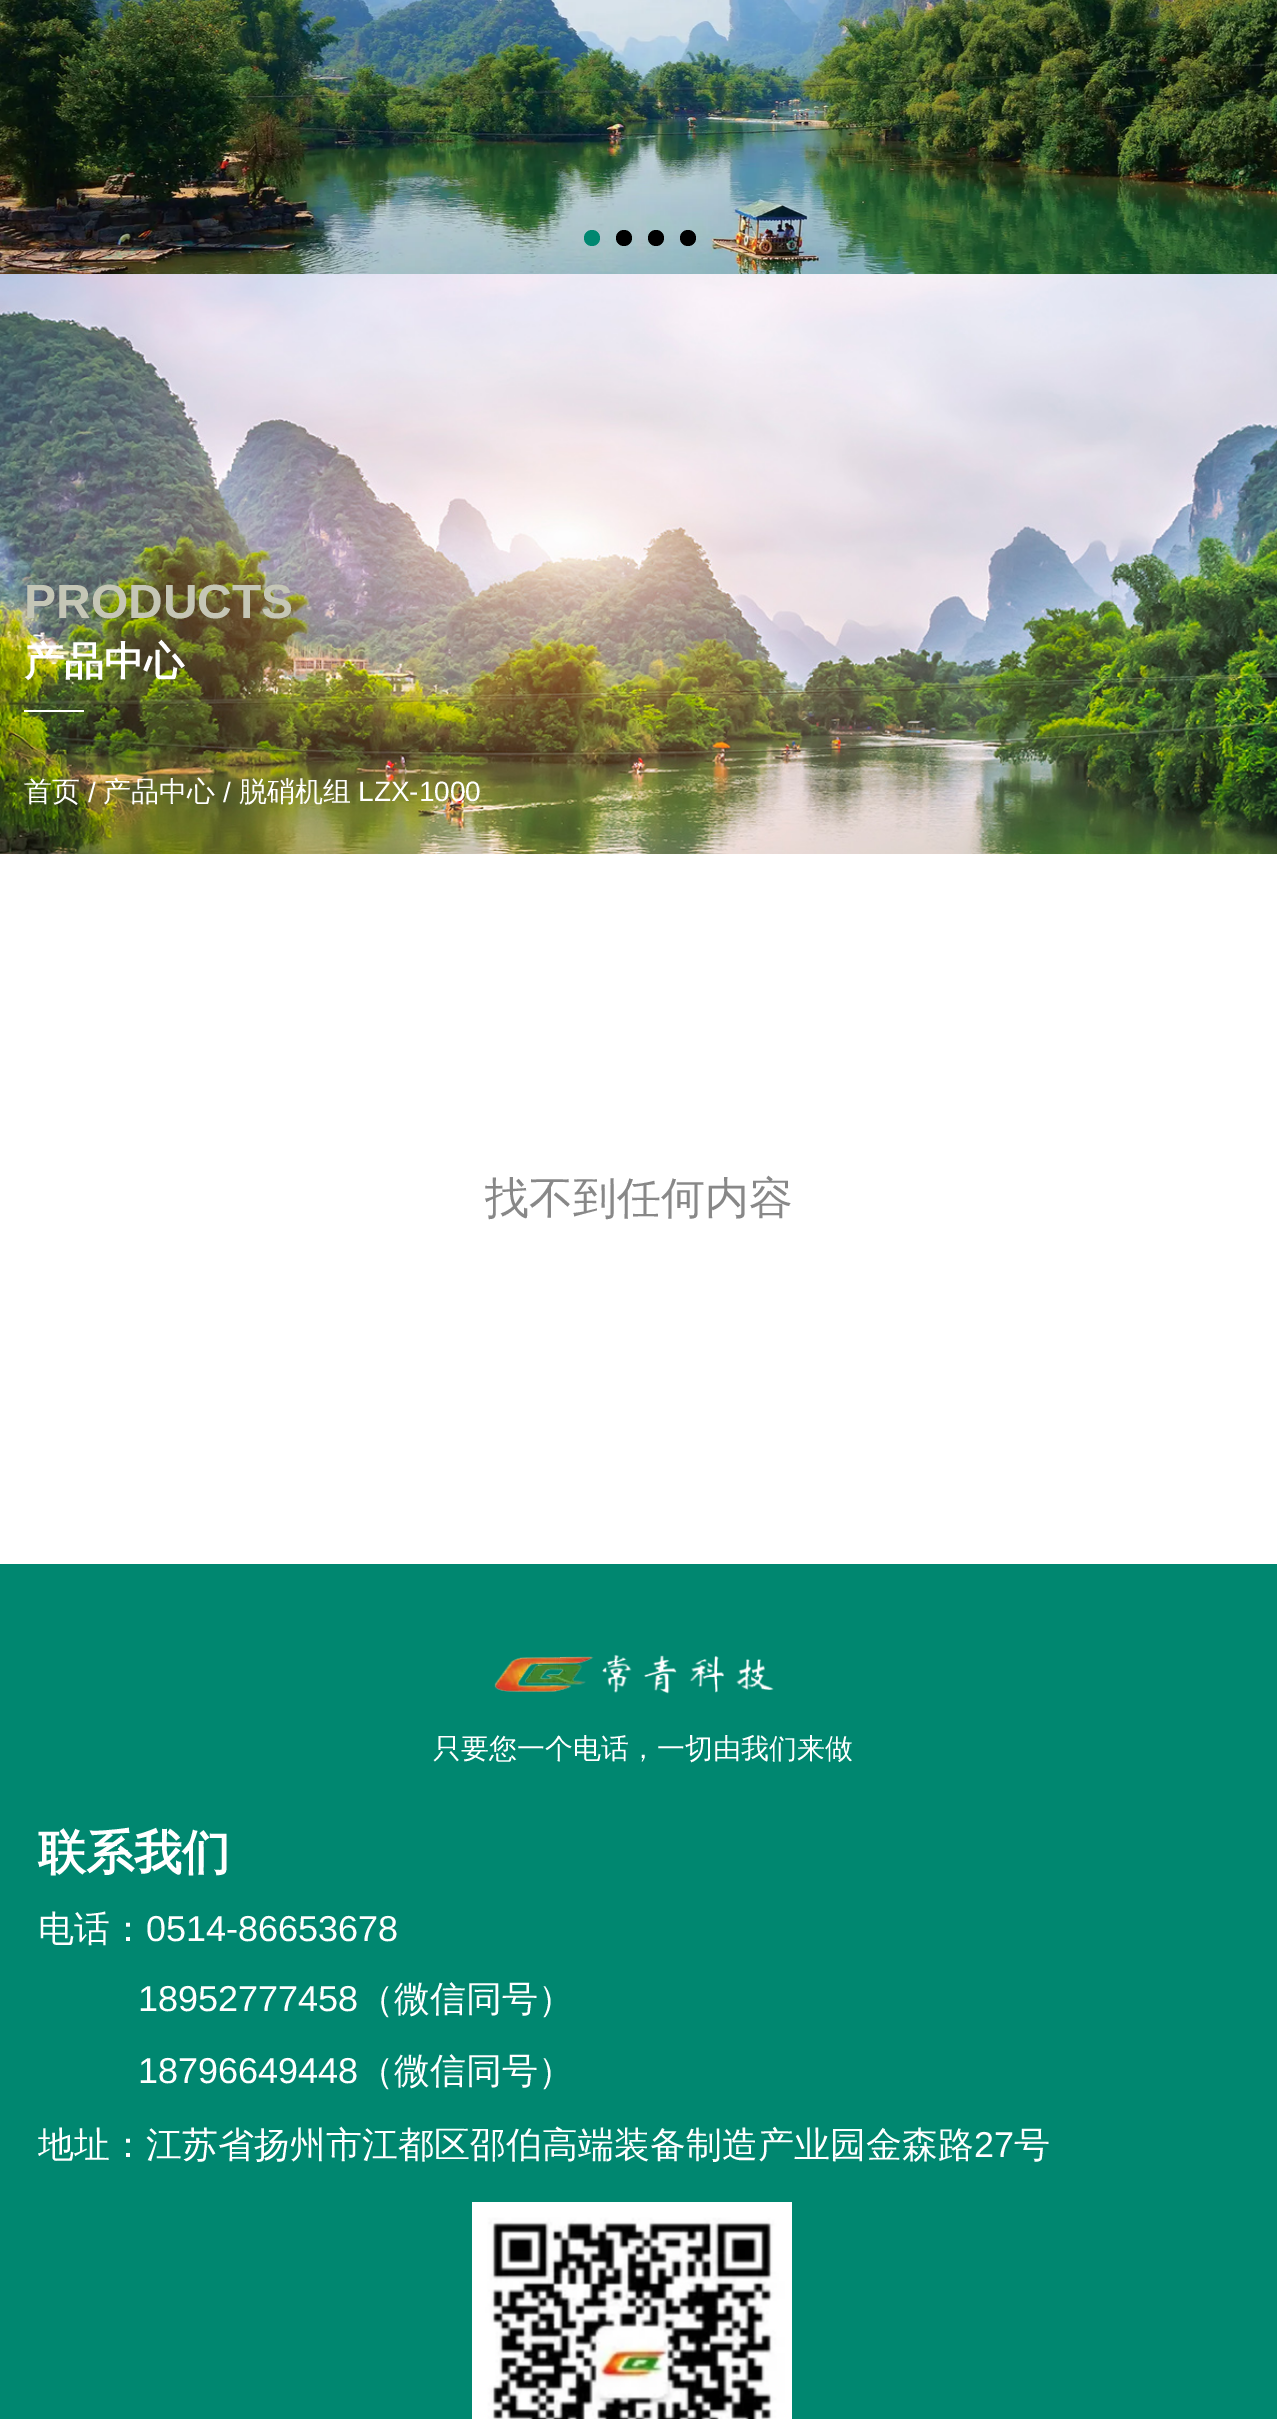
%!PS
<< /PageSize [1277 2419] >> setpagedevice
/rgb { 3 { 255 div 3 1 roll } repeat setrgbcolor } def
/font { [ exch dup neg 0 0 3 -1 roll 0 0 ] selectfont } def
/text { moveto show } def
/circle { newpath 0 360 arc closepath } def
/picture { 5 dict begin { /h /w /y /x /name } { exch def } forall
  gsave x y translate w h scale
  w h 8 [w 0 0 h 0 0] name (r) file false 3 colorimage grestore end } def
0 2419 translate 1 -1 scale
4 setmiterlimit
255 255 255 rgb
0 0 1277 2419 rectfill
(img_01.rgb) 0 0 1277 274 picture
0 135 112 rgb
592 238 8 circle fill
0 0 0 rgb
624 238 8 circle fill
656 238 8 circle fill
688 238 8 circle fill
(img_02.rgb) 0 274 1277 580 picture
255 255 255 rgb
24 710 60 2 rectfill
0 135 112 rgb
0 1564 1277 855 rectfill
(img_03.rgb) 494 1654 280 40 picture
(img_04.rgb) 472 2202 320 217 picture
/LiberationSans-Bold 48 font
197 198 182 rgb
(PRODUCTS) 24 618 text
/WenQuanYiZenHei-Bold 40 font
255 255 255 rgb
(产品中心) 24 675 text
/WenQuanYiZenHei-Medium 28 font
(首页) 24 801 text
/LiberationSans-Regular 28 font
(/) 88 802 text
/WenQuanYiZenHei-Medium 28 font
(产品中心) 103 801 text
/LiberationSans-Regular 28 font
(/) 223 802 text
/WenQuanYiZenHei-Medium 28 font
(脱硝机组) 239 801 text
/LiberationSans-Regular 28 font
(LZX-1000) 358 801 text
/WenQuanYiZenHei-Medium 44 font
136 136 136 rgb
(找不到任何内容) 485 1213 text
/WenQuanYiZenHei-Medium 28 font
255 255 255 rgb
(只要您一个电话，一切由我们来做) 433 1758 text
/WenQuanYiZenHei-Bold 48 font
(联系我们) 38 1869 text
/WenQuanYiZenHei-Medium 36 font
(电话：) 38 1941 text
/LiberationSans-Regular 36 font
(0514-86653678) 146 1941 text
(18952777458) 138 2011 text
/WenQuanYiZenHei-Medium 36 font
(（微信同号）) 358 2011 text
/LiberationSans-Regular 36 font
(18796649448) 138 2083 text
/WenQuanYiZenHei-Medium 36 font
(（微信同号）) 358 2083 text
(地址：江苏省扬州市江都区邵伯高端装备制造产业园金森路) 38 2157 text
/LiberationSans-Regular 36 font
(27) 974 2157 text
/WenQuanYiZenHei-Medium 36 font
(号) 1014 2157 text
showpage
